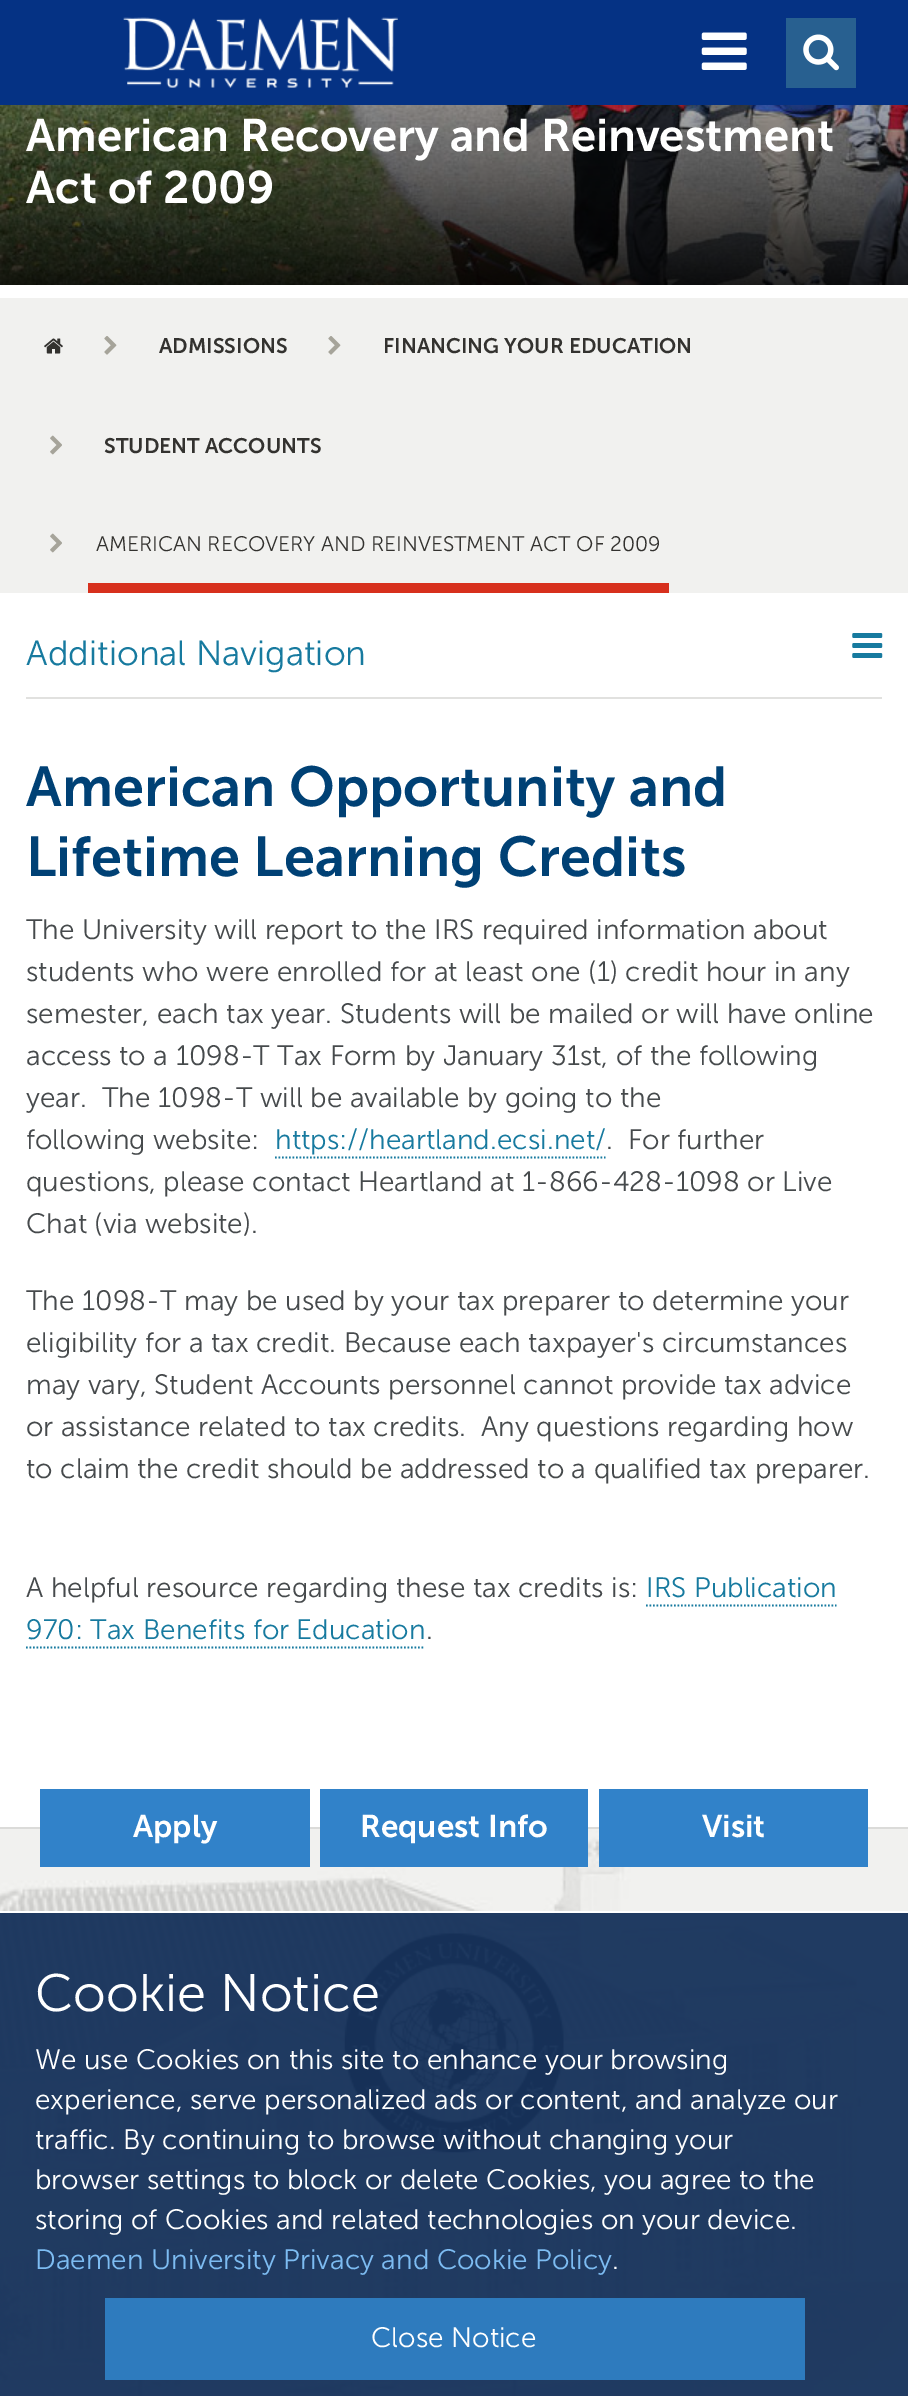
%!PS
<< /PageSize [908 2396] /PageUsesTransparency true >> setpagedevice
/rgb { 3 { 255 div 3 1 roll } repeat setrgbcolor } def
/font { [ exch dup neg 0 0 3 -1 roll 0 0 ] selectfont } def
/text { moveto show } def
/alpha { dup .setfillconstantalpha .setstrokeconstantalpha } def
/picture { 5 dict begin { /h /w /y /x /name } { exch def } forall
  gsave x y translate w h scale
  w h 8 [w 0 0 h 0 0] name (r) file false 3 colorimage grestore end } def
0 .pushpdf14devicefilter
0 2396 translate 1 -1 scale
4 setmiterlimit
255 255 255 rgb
0 0 908 2396 rectfill
5 50 132 rgb
0 0 908 105 rectfill
(img_01.rgb) 123 17 275 71 picture
(img_02.rgb) 701 32 46 38 picture
40 96 144 rgb
786 18 70 70 rectfill
(img_03.rgb) 803 34 36 37 picture
(img_04.rgb) 0 105 908 180 picture
241 241 239 rgb
0 298 908 295 rectfill
(img_05.rgb) 44 338 19 16 picture
(img_06.rgb) 104 336 13 19 picture
(img_06.rgb) 328 336 13 19 picture
(img_07.rgb) 50 435 12 20 picture
(img_07.rgb) 50 533 12 20 picture
215 48 29 rgb
88 583 581 10 rectfill
225 225 223 rgb
26 697 856 2 rectfill
(img_08.rgb) 852 633 31 25 picture
(img_09.rgb) 0 1829 908 567 picture
(img_10.rgb) 344 1933 220 220 picture
0.95 alpha
21 49 90 rgb
0 1913 908 483 rectfill
1 alpha
255 255 255 rgb
0 1911 908 2 rectfill
46 123 190 rgb
105 2298 700 82 rectfill
23 122 159 rgb
1.8 setlinewidth
[1.75 1.75] 0 setdash
275 1157.5 moveto 330.5 0 rlineto stroke
646 1605.5 moveto 190.5 0 rlineto stroke
26 1647.5 moveto 399 0 rlineto stroke
219 219 217 rgb
0 1827 908 2 rectfill
49 130 201 rgb
40 1789 270 78 rectfill
320 1789 268 78 rectfill
599 1789 269 78 rectfill
/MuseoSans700-SemiBold 45.5 font
255 255 255 rgb
(American Recovery and Reinvestment) 26 151 text
(Act of 2009) 26 203 text
/MuseoSans700-SemiBold 21 font
51 50 47 rgb
(ADMISSIONS) 159 353 text
(FINANCING YOUR EDUCATION) 383 353 text
(STUDENT ACCOUNTS) 104 453 text
/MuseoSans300-Light 21 font
(AMERICAN RECOVERY AND REINVESTMENT ACT OF 2009) 96 551 text
/MuseoSans300-Light 35 font
23 122 159 rgb
(Additional Navigation) 26 665 text
/MuseoSans300-Light 52.5 font
255 255 255 rgb
(Cookie Notice) 35 2011 text
/MuseoSans300-Light 28 font
(We use Cookies on this site to enhance your browsing) 35 2069 text
(experience, serve personalized ads or content, and analyze our) 35 2109 text
(traffic. By continuing to browse without changing your) 35 2149 text
(browser settings to block or delete Cookies, you agree to the) 35 2189 text
(storing of Cookies and related technologies on your device.) 35 2229 text
125 188 242 rgb
(Daemen University Privacy and Cookie Policy) 35 2269 text
255 255 255 rgb
(.) 612 2269 text
(Close Notice) 371 2347 text
/MuseoSans700-SemiBold 56 font
0 65 117 rgb
(American Opportunity and) 26 806 text
(Lifetime Learning Credits) 26 876 text
/MuseoSans300-Light 28 font
70 74 76 rgb
(The University will report to the IRS required information about) 26 939 text
(students who were enrolled for at least one \(1\) credit hour in any) 26 981 text
(semester, each tax year. Students will be mailed or will have online) 26 1023 text
(access to a 1098-T Tax Form by January 31st, of the following) 26 1065 text
(year.  The 1098-T will be available by going to the) 26 1107 text
(following website:) 26 1149 text
23 122 159 rgb
(https://heartland.ecsi.net/) 275 1149 text
70 74 76 rgb
(.  For further) 606 1149 text
(questions, please contact Heartland at 1-866-428-1098 or Live) 26 1191 text
(Chat \(via website\).) 26 1233 text
(The 1098-T may be used by your tax preparer to determine your) 26 1310 text
(eligibility for a tax credit. Because each taxpayer's circumstances) 26 1352 text
(may vary, Student Accounts personnel cannot provide tax advice) 26 1394 text
(or assistance related to tax credits.  Any questions regarding how) 26 1436 text
(to claim the credit should be addressed to a qualified tax preparer.) 26 1478 text
(A helpful resource regarding these tax credits is:) 26 1597 text
23 122 159 rgb
(IRS Publication) 646 1597 text
(970: Tax Benefits for Education) 26 1639 text
70 74 76 rgb
(.) 426 1639 text
/MuseoSans700-SemiBold 31.5 font
255 255 255 rgb
(Apply) 133 1837 text
(Request Info) 360 1837 text
(Visit) 702 1837 text
.poppdf14devicefilter showpage
